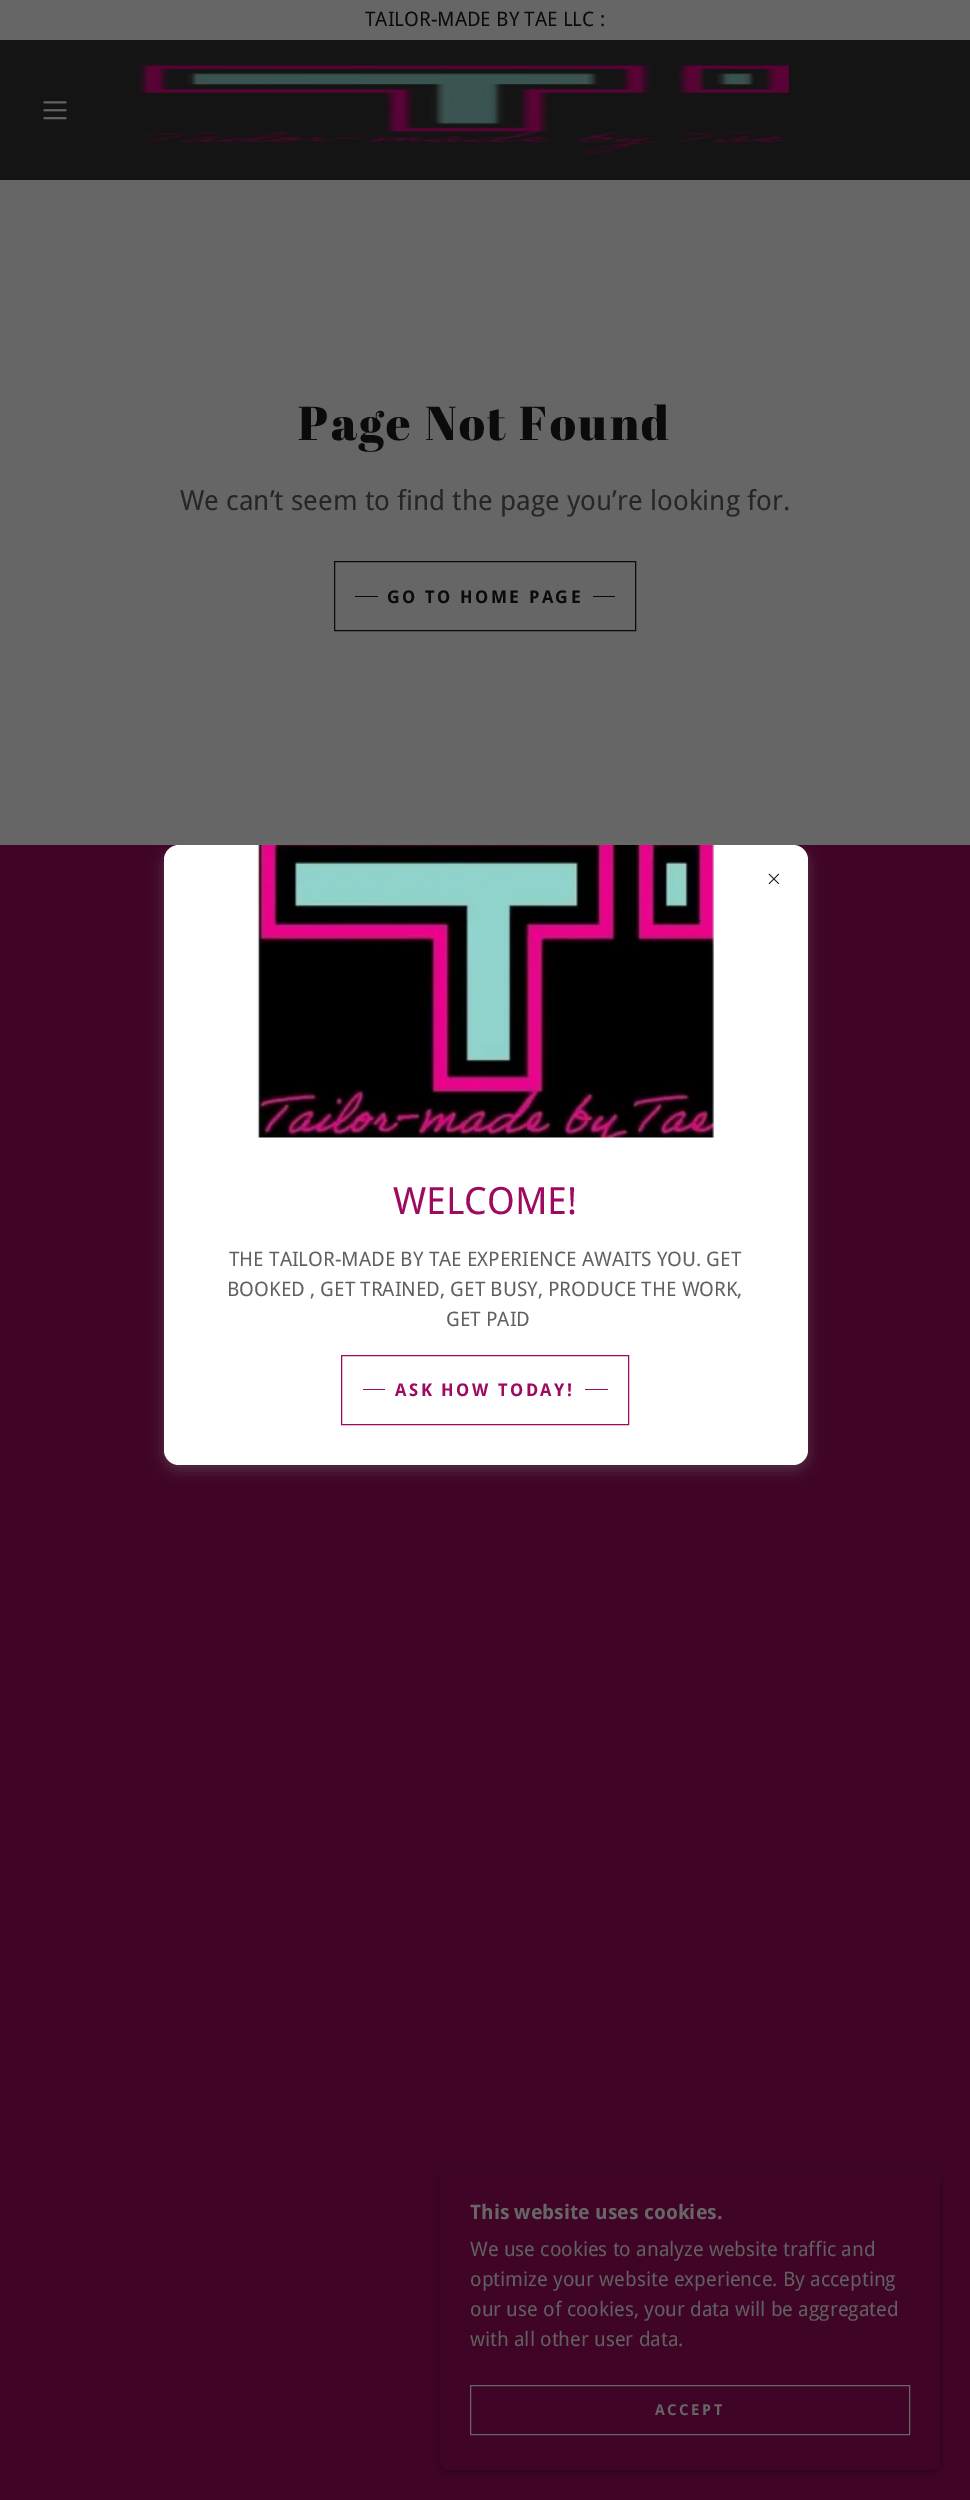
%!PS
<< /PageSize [970 2500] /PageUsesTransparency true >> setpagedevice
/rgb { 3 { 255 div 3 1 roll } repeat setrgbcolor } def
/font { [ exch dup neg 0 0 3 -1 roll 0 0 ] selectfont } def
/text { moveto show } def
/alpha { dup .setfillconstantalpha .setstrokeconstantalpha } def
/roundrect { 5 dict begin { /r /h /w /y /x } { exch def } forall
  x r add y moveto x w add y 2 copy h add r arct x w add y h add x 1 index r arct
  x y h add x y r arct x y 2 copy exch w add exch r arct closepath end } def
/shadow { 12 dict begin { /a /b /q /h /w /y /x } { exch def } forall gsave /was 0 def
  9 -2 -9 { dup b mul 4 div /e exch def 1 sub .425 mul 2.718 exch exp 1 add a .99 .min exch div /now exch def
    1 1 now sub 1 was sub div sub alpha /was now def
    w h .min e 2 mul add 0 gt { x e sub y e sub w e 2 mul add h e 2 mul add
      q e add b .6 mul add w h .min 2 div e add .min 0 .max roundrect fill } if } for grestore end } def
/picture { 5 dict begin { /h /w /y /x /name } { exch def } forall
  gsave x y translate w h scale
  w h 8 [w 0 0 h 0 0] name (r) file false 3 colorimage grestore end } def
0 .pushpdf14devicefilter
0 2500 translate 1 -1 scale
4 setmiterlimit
63 4 38 rgb
0 0 970 2500 rectfill
102 102 102 rgb
0 0 970 40 rectfill
20 20 20 rgb
0 40 970 140 rectfill
(img_01.rgb) 43 101 24 19 picture
(img_02.rgb) 140 64 649 90 picture
102 102 102 rgb
0 180 970 665 rectfill
11 11 11 rgb
334.5 561.5 301 69 rectstroke
355 596 23 1 rectfill
593 596 22 1 rectfill
117 117 117 rgb
164 850 644 620 15 7.5 0.4 shadow
255 255 255 rgb
164 845 644 620 15 roundrect fill
(img_03.rgb) 768 873 12 12 picture
(img_04.rgb) 257 845 457 293 picture
157 10 95 rgb
341.5 1355.5 287 69 rectstroke
363 1389 22 1 rectfill
585 1389 23 1 rectfill
0 0 0 rgb
440 2173 500 300 9 4 0.3 shadow
63 4 38 rgb
440 2170 500 300 9 roundrect fill
102 102 102 rgb
470.5 2385.5 439 49 rectstroke
/DroidSans-Regular 20 font
11 11 11 rgb
(TAILOR-MADE BY TAE LLC :) 365 26 text
/AbrilFatface-Regular 47.5 font
298 440 moveto 2.5 0 (Page Not Found) ashow
/DroidSans-Regular 27.5 font
38 38 38 rgb
(We can’t seem to find the page you’re looking for.) 180 510 text
/DroidSans-Bold 17.5 font
11 11 11 rgb
387 603 moveto 2.5 0 (GO TO HOME PAGE) ashow
/DroidSans-Regular 37.5 font
157 10 95 rgb
(WELCOME!) 393 1214 text
/DroidSans-Regular 20 font
96 96 96 rgb
(THE TAILOR-MADE BY TAE EXPERIENCE AWAITS YOU. GET) 229 1266 text
(BOOKED , GET TRAINED, GET BUSY, PRODUCE THE WORK,) 227 1296 text
(GET PAID) 446 1326 text
/DroidSans-Bold 17.5 font
157 10 95 rgb
395 1396 moveto 2.5 0 (ASK HOW TODAY!) ashow
/DroidSans-Bold 20 font
102 102 102 rgb
(This website uses cookies.) 470 2219 text
/DroidSans-Regular 20 font
96 96 96 rgb
(We use cookies to analyze website traffic and) 470 2256 text
(optimize your website experience. By accepting) 470 2286 text
(our use of cookies, your data will be aggregated) 470 2316 text
(with all other user data.) 470 2346 text
/DroidSans-Bold 15 font
102 102 102 rgb
655 2415 moveto 2.5 0 (ACCEPT) ashow
.poppdf14devicefilter showpage
